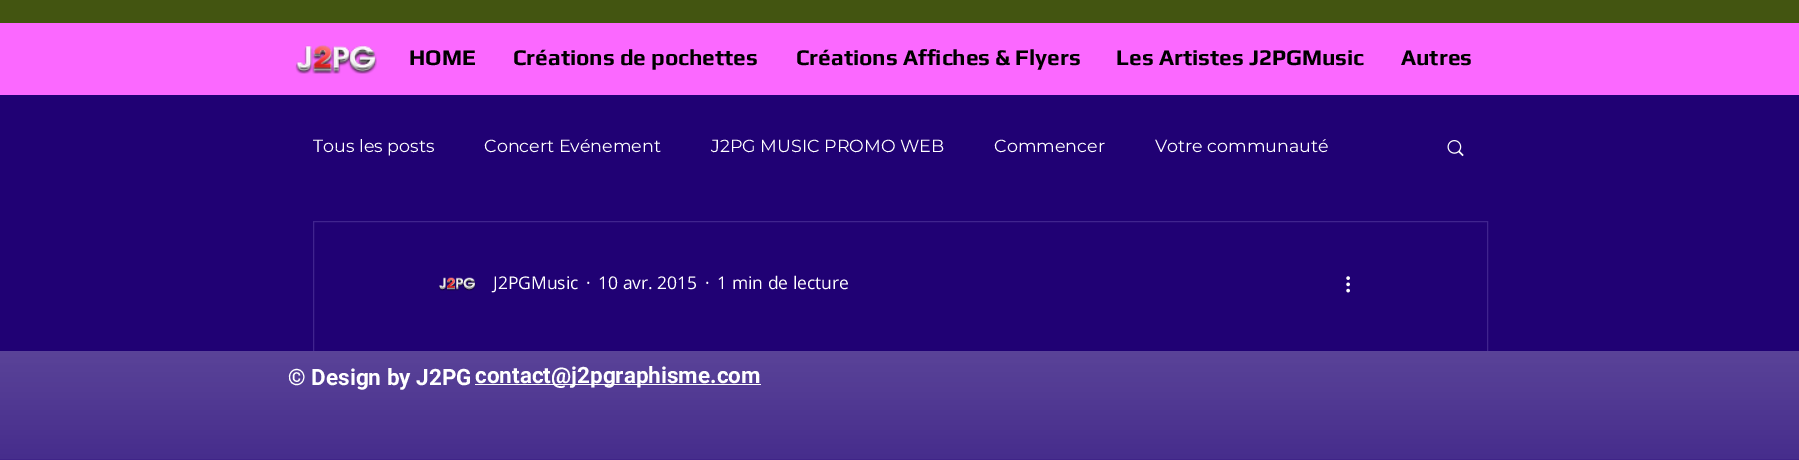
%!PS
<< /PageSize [1799 460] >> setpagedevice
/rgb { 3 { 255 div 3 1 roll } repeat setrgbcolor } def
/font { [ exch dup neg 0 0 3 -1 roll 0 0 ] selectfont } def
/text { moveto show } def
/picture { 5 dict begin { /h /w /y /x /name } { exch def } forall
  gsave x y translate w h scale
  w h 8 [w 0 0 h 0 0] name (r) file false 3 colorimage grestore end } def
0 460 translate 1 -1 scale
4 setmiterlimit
32 1 116 rgb
0 0 1799 460 rectfill
67 85 17 rgb
0 0 1799 23 rectfill
251 104 255 rgb
0 23 1799 72 rectfill
(img_01.rgb) 295 45 82 29 picture
(img_02.rgb) 1447 140 17 17 picture
64 36 142 rgb
313.5 221.5 1174 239 rectstroke
(img_03.rgb) 439 277 37 14 picture
(img_04.rgb) 1346 276 4 17 picture
32 1 116 rgb
313 351 1175 109 rectfill
(img_05.rgb) 0 351 1799 109 picture
255 255 255 rgb
475 384 286 1 rectfill
/Play-Bold 22.5 font
0 0 0 rgb
(HOME) 409 65 text
(Créations de pochettes) 513 65 text
(Créations Affiches & Flyers) 796 65 text
(Les Artistes J2PGMusic) 1116 65 text
(Autres) 1401 65 text
/Montserrat-Regular 17.5 font
255 255 255 rgb
(Tous les posts) 313 152 text
(Concert Evénement) 484 152 text
(J2PG MUSIC PROMO WEB) 711 152 text
(Commencer) 994 152 text
(Votre communauté) 1155 152 text
/OpenSans-Regular 17.5 font
(J2PGMusic) 493 289 text
(·) 586 289 text
(10 avr. 2015) 598 289 text
(·) 705 289 text
(1 min de lecture) 717 289 text
/Roboto-Bold 22.5 font
(© Design by J2PG) 288 385 text
(contact@j2pgraphisme.com) 475 383 text
showpage
